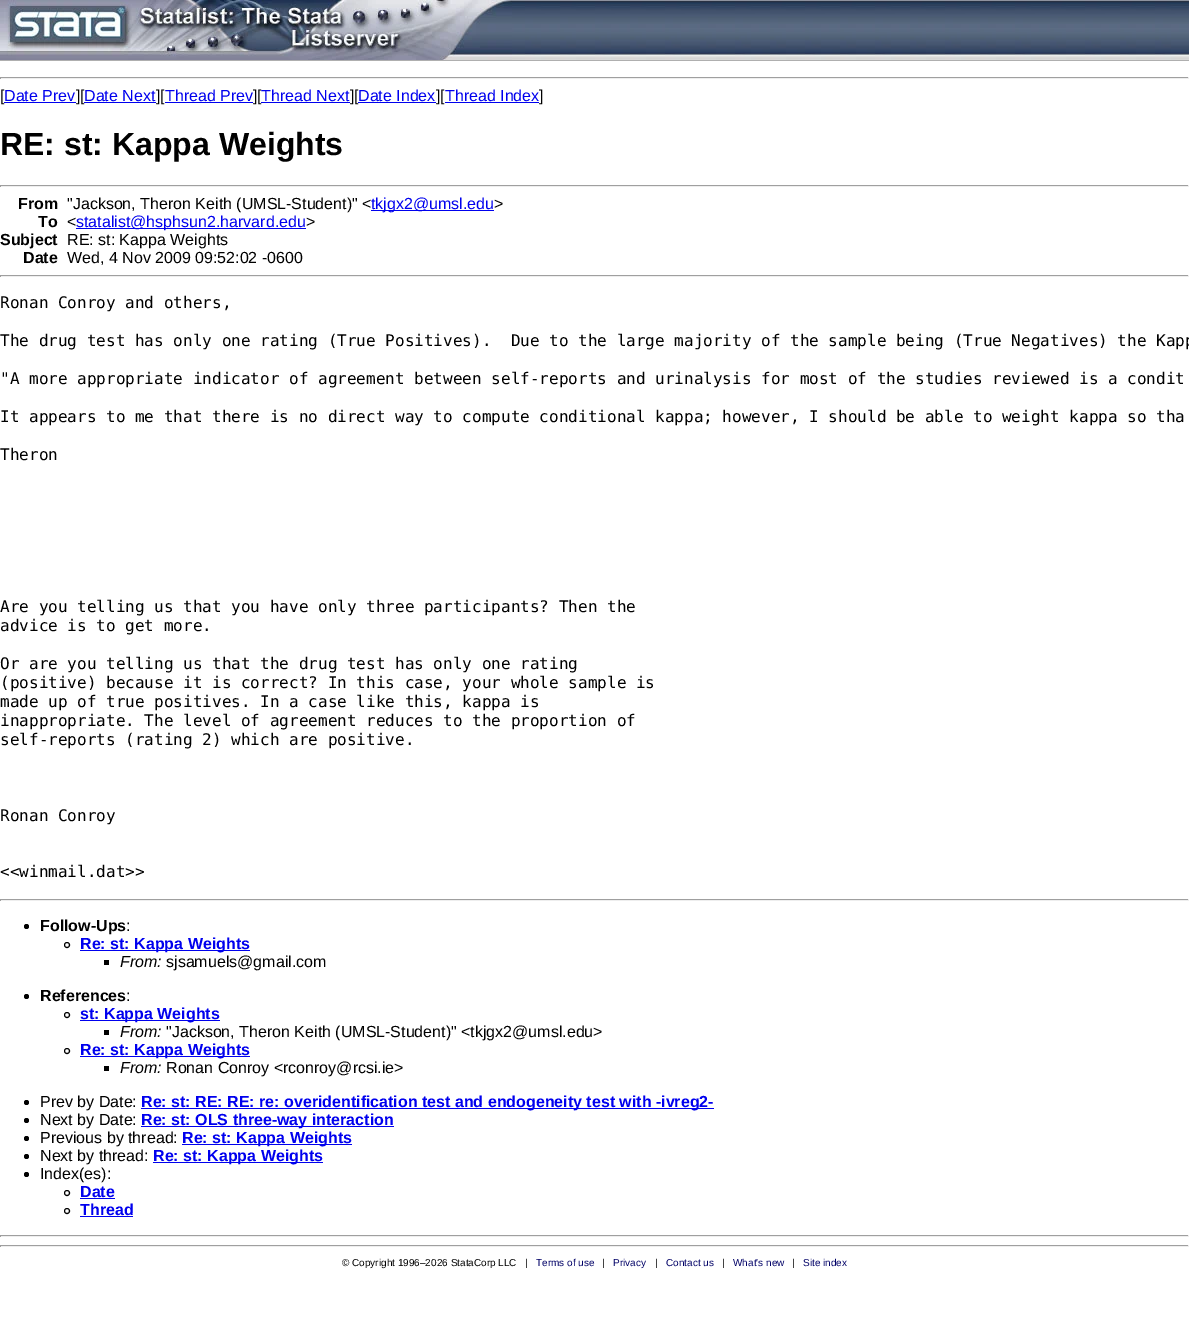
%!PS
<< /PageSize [1189 1335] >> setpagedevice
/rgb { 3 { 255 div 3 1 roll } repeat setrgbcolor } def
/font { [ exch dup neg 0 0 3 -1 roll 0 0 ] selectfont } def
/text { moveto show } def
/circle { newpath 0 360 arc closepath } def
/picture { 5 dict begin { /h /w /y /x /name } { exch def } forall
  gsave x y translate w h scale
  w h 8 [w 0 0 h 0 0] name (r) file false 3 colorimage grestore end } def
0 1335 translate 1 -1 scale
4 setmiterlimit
255 255 255 rgb
0 0 1189 1335 rectfill
(img_01.rgb) 512 0 677 60 picture
175 175 175 rgb
0 60 1189 1 rectfill
(img_02.rgb) 0 0 512 60 picture
159 159 159 rgb
0 77 1189 1 rectfill
238 238 238 rgb
1188 77 1 2 rectfill
0 78 1189 1 rectfill
159 159 159 rgb
0 77 1 2 rectfill
0 0 238 rgb
165 102 88 1 rectfill
445 102 94 1 rectfill
159 159 159 rgb
0 185 1189 1 rectfill
238 238 238 rgb
1188 185 1 2 rectfill
0 186 1189 1 rectfill
159 159 159 rgb
0 185 1 2 rectfill
0 0 238 rgb
371 210 123 1 rectfill
76 228 230 1 rectfill
159 159 159 rgb
0 275 1189 1 rectfill
238 238 238 rgb
1188 275 1 2 rectfill
0 276 1189 1 rectfill
159 159 159 rgb
0 275 1 2 rectfill
0 899 1189 1 rectfill
238 238 238 rgb
1188 899 1 2 rectfill
0 900 1189 1 rectfill
159 159 159 rgb
0 899 1 2 rectfill
0 0 0 rgb
26.5 926.5 2.5 circle fill
67 945 2.5 circle stroke
0 0 238 rgb
80 950 170 1 rectfill
0 0 0 rgb
104 960 5 5 rectfill
26.5 996.5 2.5 circle fill
67 1015 2.5 circle stroke
0 0 238 rgb
80 1020 140 1 rectfill
0 0 0 rgb
104 1030 5 5 rectfill
67 1051 2.5 circle stroke
0 0 238 rgb
80 1056 170 1 rectfill
0 0 0 rgb
104 1066 5 5 rectfill
26.5 1102.5 2.5 circle fill
0 0 238 rgb
141 1108 573 1 rectfill
0 0 0 rgb
26.5 1120.5 2.5 circle fill
0 0 238 rgb
141 1126 253 1 rectfill
0 0 0 rgb
26.5 1138.5 2.5 circle fill
0 0 238 rgb
182 1144 170 1 rectfill
0 0 0 rgb
26.5 1156.5 2.5 circle fill
0 0 238 rgb
153 1162 170 1 rectfill
0 0 0 rgb
26.5 1174.5 2.5 circle fill
67 1193 2.5 circle stroke
0 0 238 rgb
80 1198 35 1 rectfill
0 0 0 rgb
67 1211 2.5 circle stroke
0 0 238 rgb
80 1216 53 1 rectfill
159 159 159 rgb
0 1235 1189 1 rectfill
238 238 238 rgb
1188 1235 1 2 rectfill
0 1236 1189 1 rectfill
159 159 159 rgb
0 1235 1 2 rectfill
0 1245 1189 1 rectfill
238 238 238 rgb
1188 1245 1 2 rectfill
0 1246 1189 1 rectfill
159 159 159 rgb
0 1245 1 2 rectfill
/LiberationSans-Regular 16 font
0 0 0 rgb
([) 0 101 text
0 0 238 rgb
(Date Prev) 4 101 text
4 102 72 1 rectfill
0 0 0 rgb
(][) 76 101 text
0 0 238 rgb
(Date Next) 84 101 text
84 102 72 1 rectfill
0 0 0 rgb
(][) 156 101 text
0 0 238 rgb
(Thread Prev) 165 101 text
0 0 0 rgb
(][) 253 101 text
0 0 238 rgb
(Thread Next) 261 101 text
261 102 89 1 rectfill
0 0 0 rgb
(][) 350 101 text
0 0 238 rgb
(Date Index) 358 101 text
358 102 78 1 rectfill
0 0 0 rgb
(][) 436 101 text
0 0 238 rgb
(Thread Index) 445 101 text
0 0 0 rgb
(]) 539 101 text
/LiberationSans-Bold 32 font
(RE: st: Kappa Weights) 0 155 text
/LiberationSans-Bold 16 font
(From) 18 209 text
/LiberationSans-Regular 16 font
("Jackson, Theron Keith \(UMSL-Student\)" <) 67 209 text
0 0 238 rgb
(tkjgx2@umsl.edu) 371 209 text
0 0 0 rgb
(>) 494 209 text
/LiberationSans-Bold 16 font
(To) 38 227 text
/LiberationSans-Regular 16 font
(<) 67 227 text
0 0 238 rgb
(statalist@hsphsun2.harvard.edu) 76 227 text
0 0 0 rgb
(>) 306 227 text
/LiberationSans-Bold 16 font
(Subject) 0 245 text
/LiberationSans-Regular 16 font
(RE: st: Kappa Weights) 67 245 text
/LiberationSans-Bold 16 font
(Date) 23 263 text
/LiberationSans-Regular 16 font
(Wed, 4 Nov 2009 09:52:02 -0600) 67 263 text
/DejaVuSansMono-Regular 16 font
(Ronan Conroy and others,) 0 308 text
(The drug test has only one rating \(True Positives\).  Due to the large majority of the sample being \(True Negatives\) the Kapp) 0 346 text
("A more appropriate indicator of agreement between self-reports and urinalysis for most of the studies reviewed is a condit) 0 384 text
(It appears to me that there is no direct way to compute conditional kappa; however, I should be able to weight kappa so tha) 0 422 text
(Theron) 0 460 text
(Are you telling us that you have only three participants? Then the) 0 612 text
(advice is to get more.) 0 631 text
(Or are you telling us that the drug test has only one rating) 0 669 text
(\(positive\) because it is correct? In this case, your whole sample is) 0 688 text
(made up of true positives. In a case like this, kappa is) 0 707 text
(inappropriate. The level of agreement reduces to the proportion of) 0 726 text
(self-reports \(rating 2\) which are positive.) 0 745 text
(Ronan Conroy) 0 821 text
(<<winmail.dat>>) 0 877 text
/LiberationSans-Bold 16 font
(Follow-Ups) 40 931 text
/LiberationSans-Regular 16 font
(:) 126 931 text
/LiberationSans-Bold 16 font
0 0 238 rgb
(Re: st: Kappa Weights) 80 949 text
/LiberationSans-Italic 16 font
0 0 0 rgb
(From:) 120 967 text
/LiberationSans-Regular 16 font
(sjsamuels@gmail.com) 166 967 text
/LiberationSans-Bold 16 font
(References) 40 1001 text
/LiberationSans-Regular 16 font
(:) 126 1001 text
/LiberationSans-Bold 16 font
0 0 238 rgb
(st: Kappa Weights) 80 1019 text
/LiberationSans-Italic 16 font
0 0 0 rgb
(From:) 120 1037 text
/LiberationSans-Regular 16 font
("Jackson, Theron Keith \(UMSL-Student\)" <tkjgx2@umsl.edu>) 166 1037 text
/LiberationSans-Bold 16 font
0 0 238 rgb
(Re: st: Kappa Weights) 80 1055 text
/LiberationSans-Italic 16 font
0 0 0 rgb
(From:) 120 1073 text
/LiberationSans-Regular 16 font
(Ronan Conroy <rconroy@rcsi.ie>) 166 1073 text
(Prev by Date:) 40 1107 text
/LiberationSans-Bold 16 font
0 0 238 rgb
(Re: st: RE: RE: re: overidentification test and endogeneity test with -ivreg2-) 141 1107 text
/LiberationSans-Regular 16 font
0 0 0 rgb
(Next by Date:) 40 1125 text
/LiberationSans-Bold 16 font
0 0 238 rgb
(Re: st: OLS three-way interaction) 141 1125 text
/LiberationSans-Regular 16 font
0 0 0 rgb
(Previous by thread:) 40 1143 text
/LiberationSans-Bold 16 font
0 0 238 rgb
(Re: st: Kappa Weights) 182 1143 text
/LiberationSans-Regular 16 font
0 0 0 rgb
(Next by thread:) 40 1161 text
/LiberationSans-Bold 16 font
0 0 238 rgb
(Re: st: Kappa Weights) 153 1161 text
/LiberationSans-Regular 16 font
0 0 0 rgb
(Index\(es\):) 40 1179 text
/LiberationSans-Bold 16 font
0 0 238 rgb
(Date) 80 1197 text
(Thread) 80 1215 text
/LiberationSans-Regular 10 font
0 0 0 rgb
(© Copyright 1996–2026 StataCorp LLC) 342 1266 text
(|) 525 1266 text
0 0 102 rgb
(Terms of use) 536 1266 text
0 0 0 rgb
(|) 602 1266 text
0 0 102 rgb
(Privacy) 613 1266 text
0 0 0 rgb
(|) 655 1266 text
0 0 102 rgb
(Contact us) 666 1266 text
0 0 0 rgb
(|) 722 1266 text
0 0 102 rgb
(What's new) 733 1266 text
0 0 0 rgb
(|) 792 1266 text
0 0 102 rgb
(Site index) 803 1266 text
showpage
